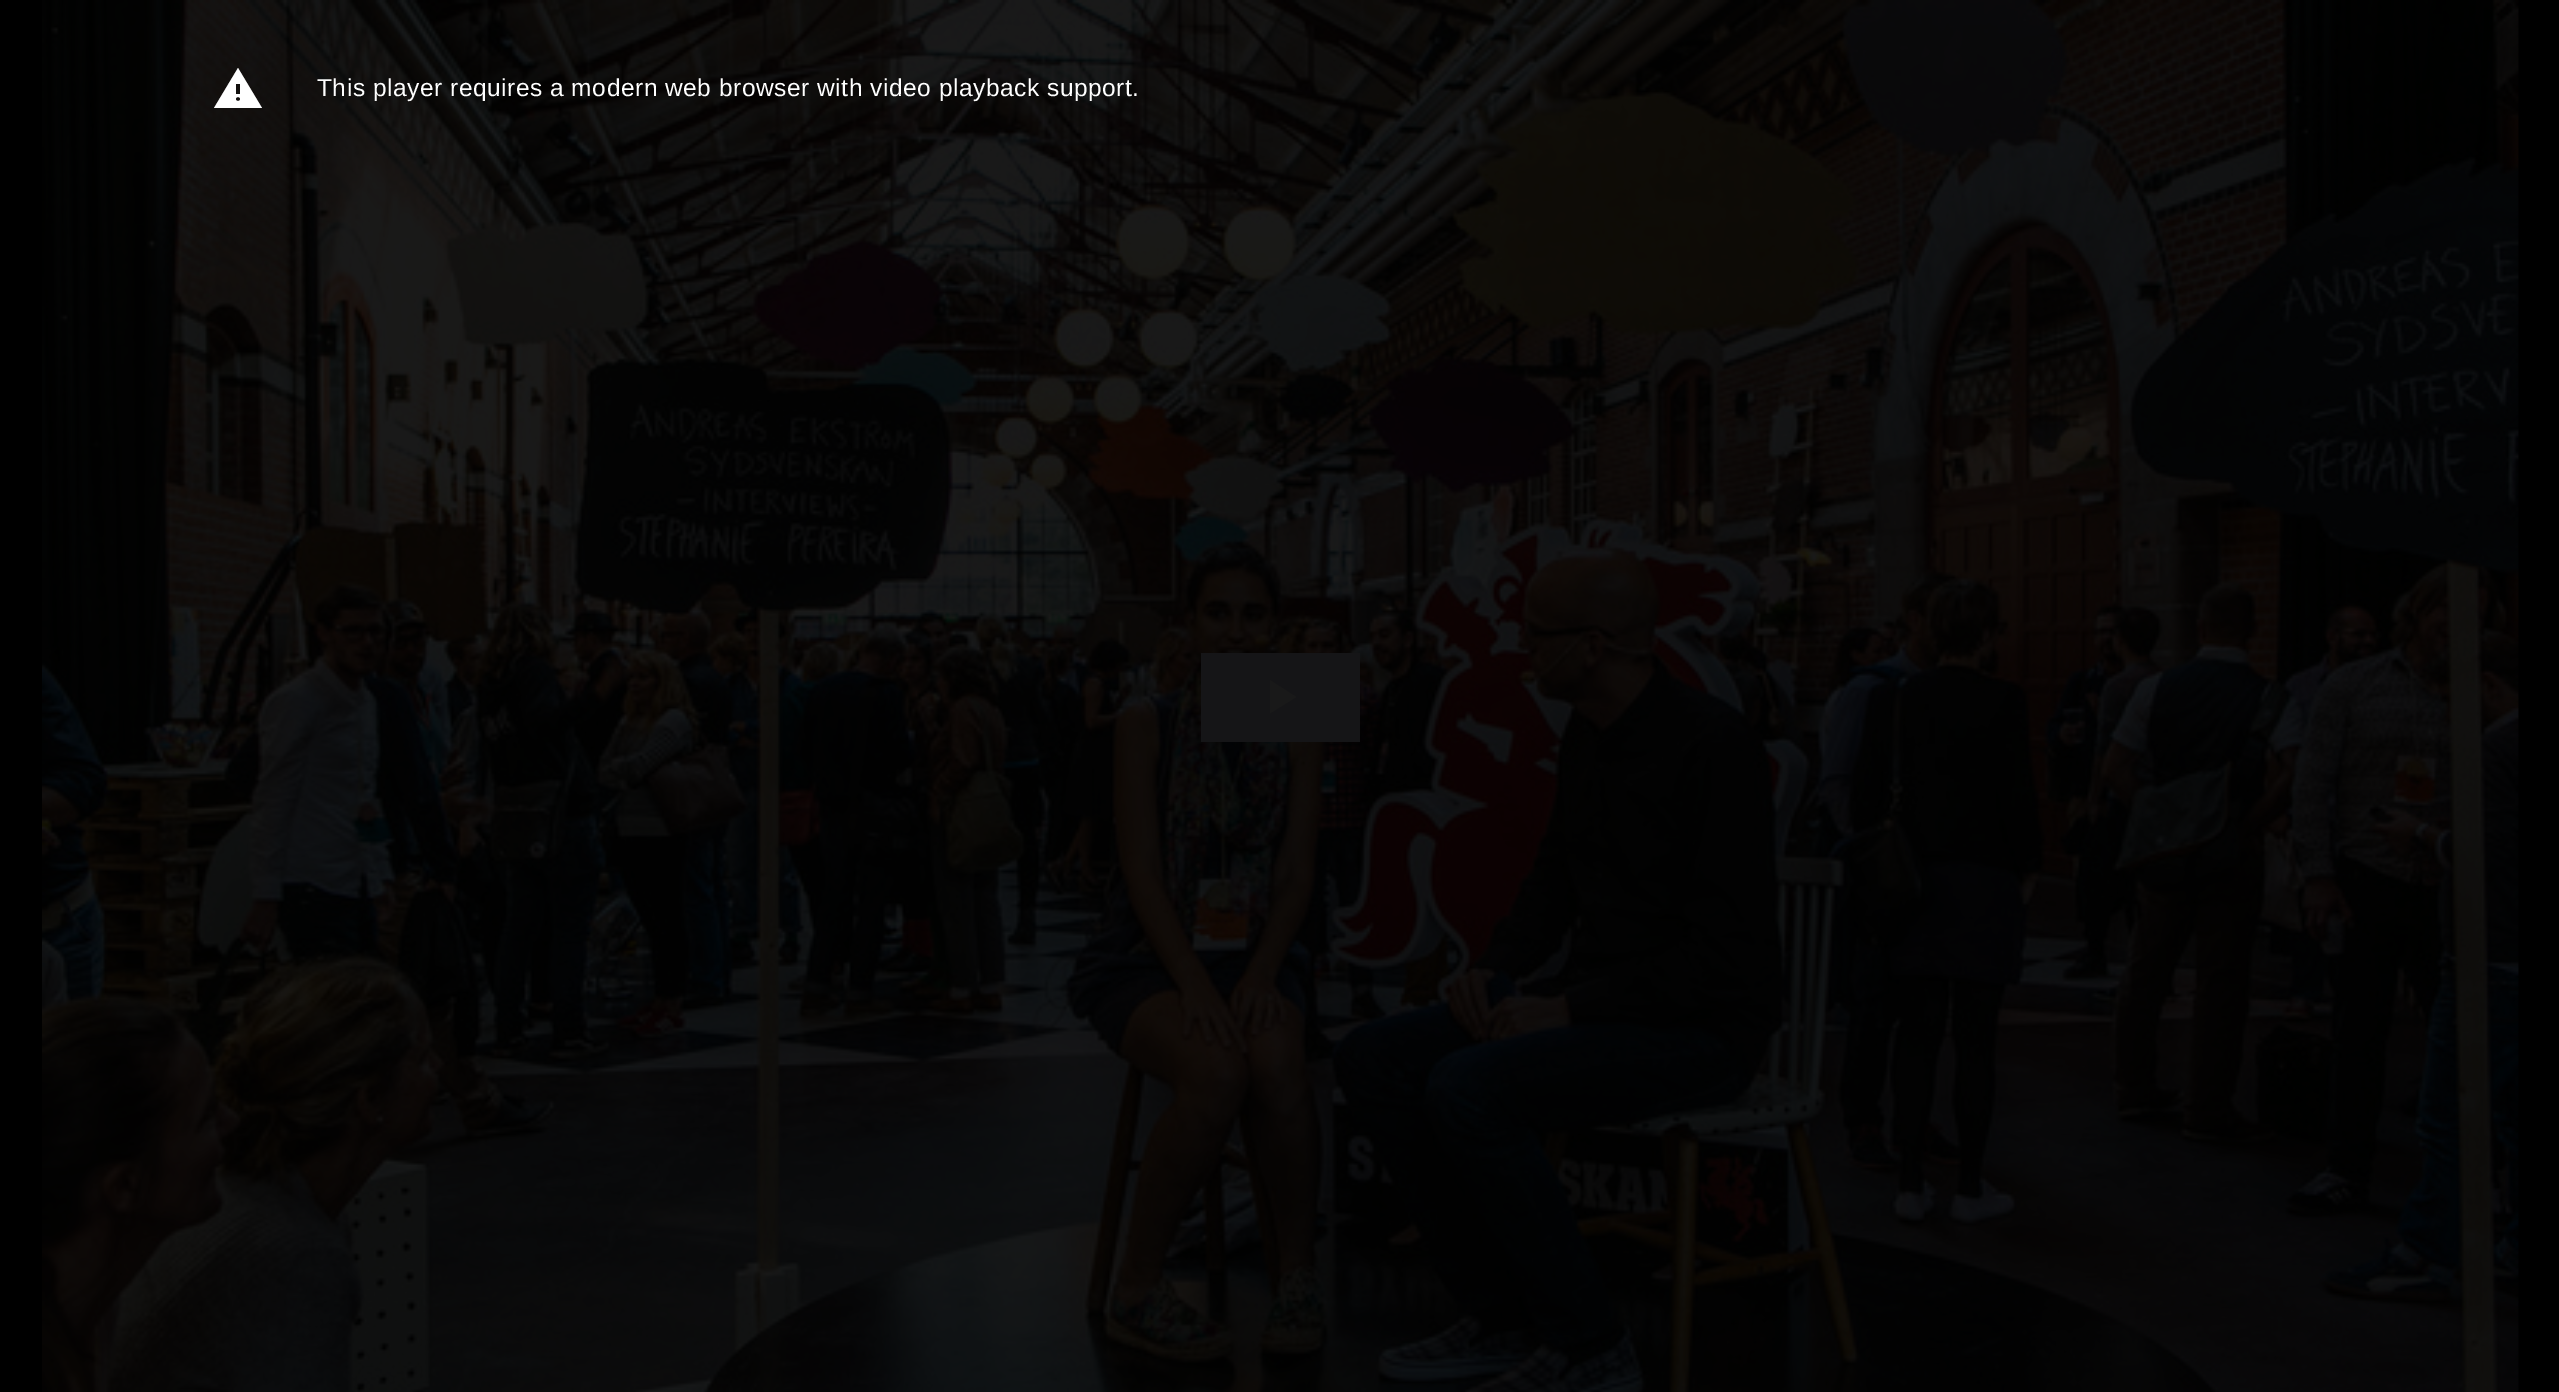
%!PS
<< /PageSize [2559 1392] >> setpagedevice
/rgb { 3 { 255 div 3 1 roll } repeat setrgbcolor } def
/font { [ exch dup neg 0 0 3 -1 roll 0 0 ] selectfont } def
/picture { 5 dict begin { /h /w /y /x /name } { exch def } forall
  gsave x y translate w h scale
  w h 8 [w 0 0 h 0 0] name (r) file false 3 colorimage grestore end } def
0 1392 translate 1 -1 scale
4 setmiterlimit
0 0 0 rgb
0 0 2559 1392 rectfill
(img_01.rgb) 42 0 2477 1392 picture
(img_02.rgb) 2518 0 1 1392 picture
255 255 255 rgb
214 108 moveto 24 -40 rlineto 24 40 rlineto closepath 238 101 moveto 3 0 3 -4 0 -4 rcurveto -3 0 -3 4 0 4 rcurveto closepath 236 94 moveto 4 0 rlineto 0 -10 rlineto -4 0 rlineto closepath fill
21 21 23 rgb
1201 653 159 89 rectfill
25 25 25 rgb
1270 680 moveto 0 33.5 rlineto 26.5 -16.5 rlineto closepath fill
/LiberationSans-Regular 24.5 font
255 255 255 rgb
317 96 moveto 0.53 0 (This player requires a modern web browser with video playback support.) ashow
showpage
